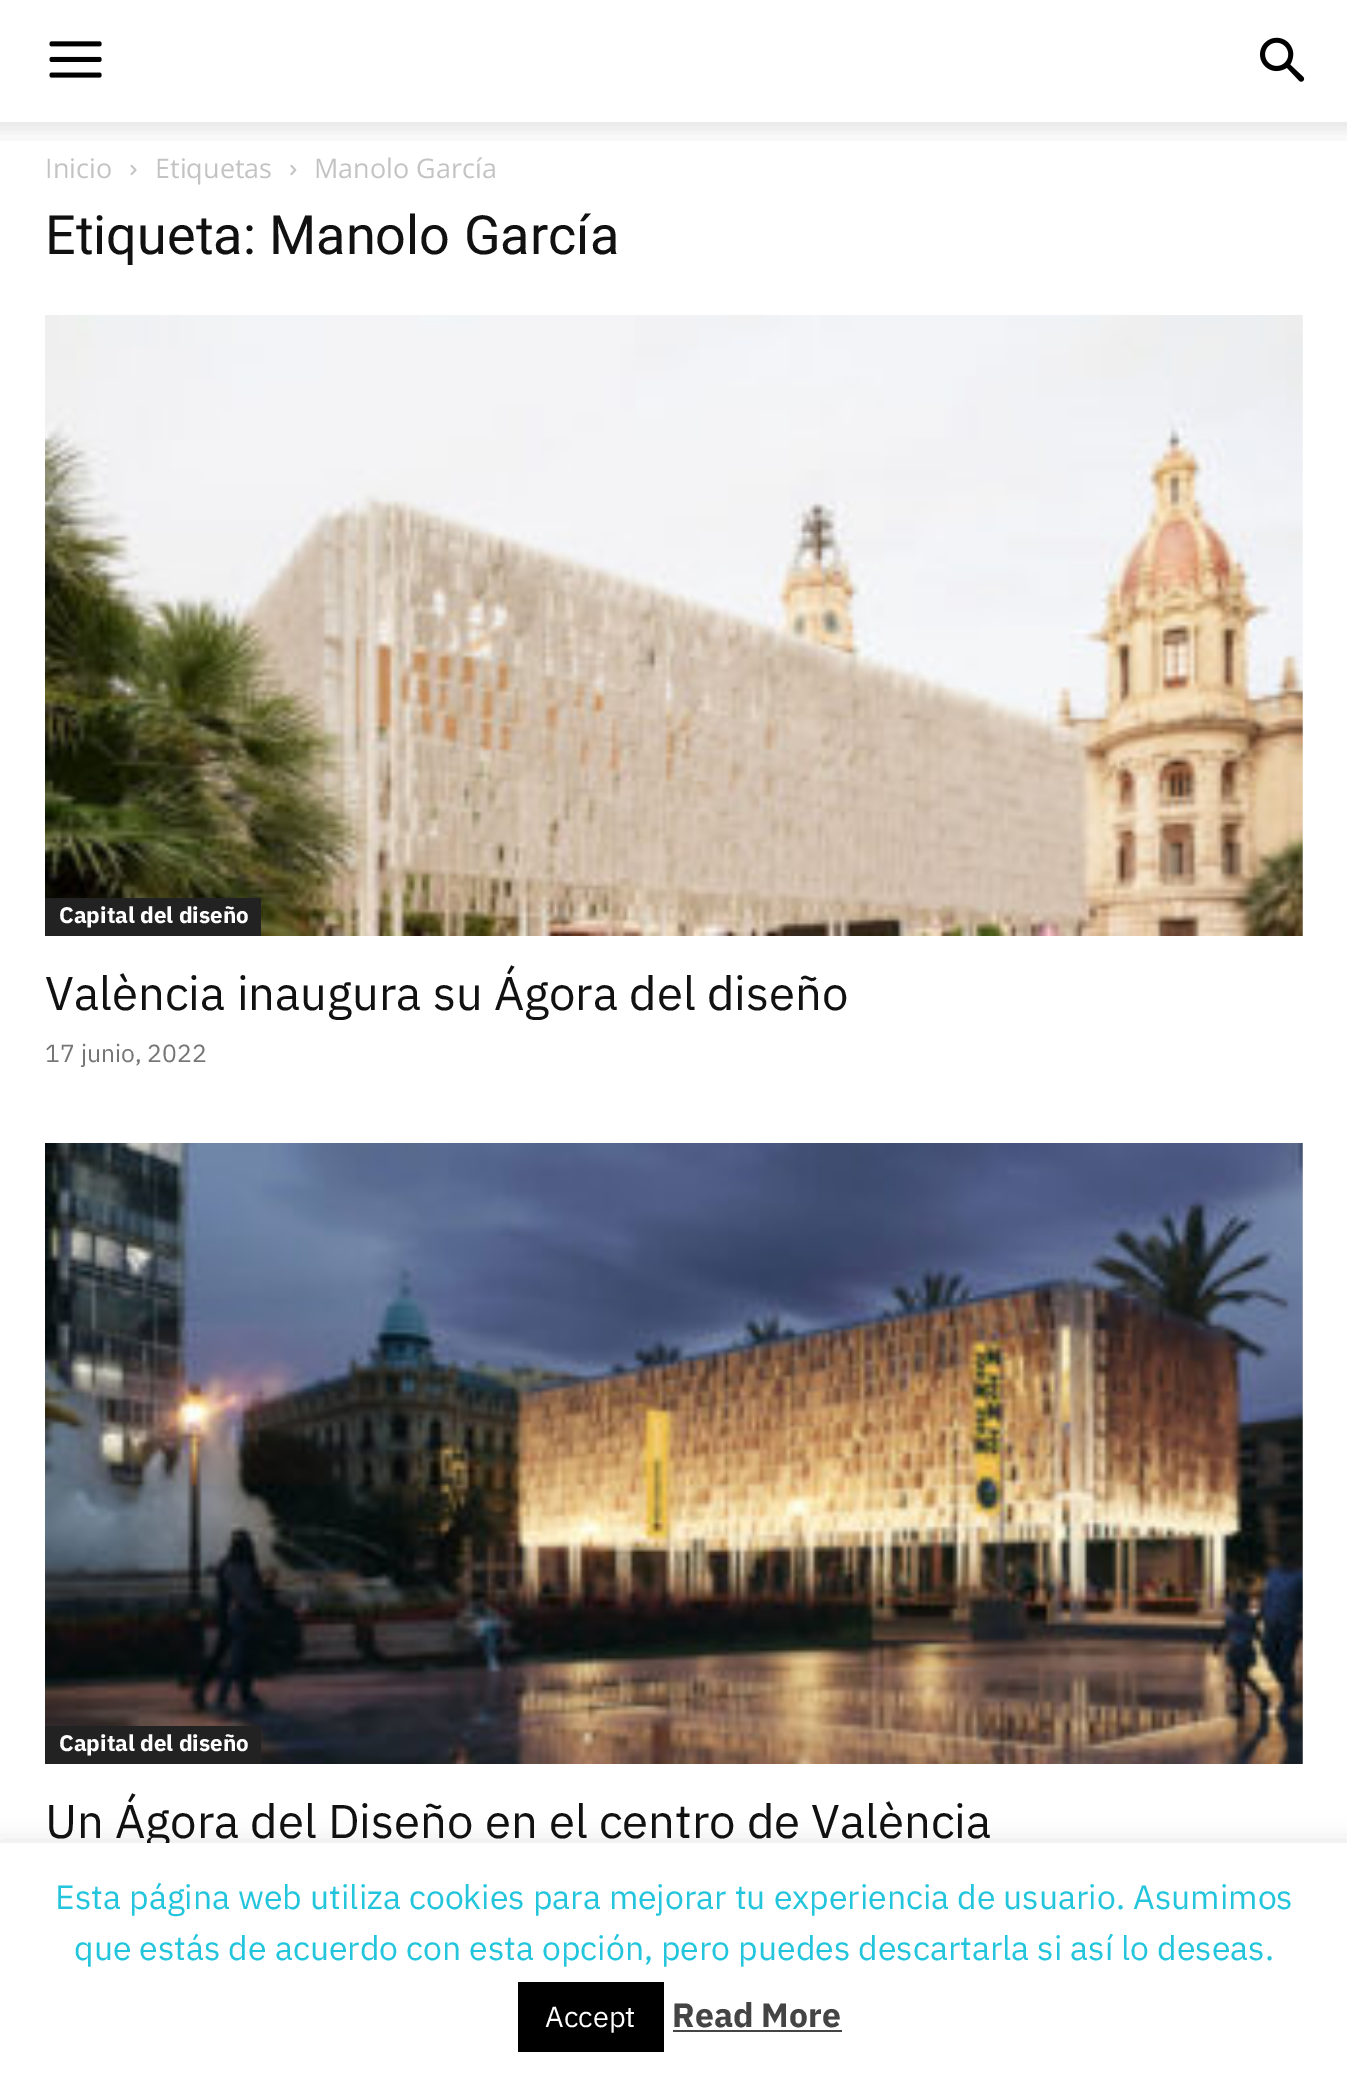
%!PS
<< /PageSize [1347 2079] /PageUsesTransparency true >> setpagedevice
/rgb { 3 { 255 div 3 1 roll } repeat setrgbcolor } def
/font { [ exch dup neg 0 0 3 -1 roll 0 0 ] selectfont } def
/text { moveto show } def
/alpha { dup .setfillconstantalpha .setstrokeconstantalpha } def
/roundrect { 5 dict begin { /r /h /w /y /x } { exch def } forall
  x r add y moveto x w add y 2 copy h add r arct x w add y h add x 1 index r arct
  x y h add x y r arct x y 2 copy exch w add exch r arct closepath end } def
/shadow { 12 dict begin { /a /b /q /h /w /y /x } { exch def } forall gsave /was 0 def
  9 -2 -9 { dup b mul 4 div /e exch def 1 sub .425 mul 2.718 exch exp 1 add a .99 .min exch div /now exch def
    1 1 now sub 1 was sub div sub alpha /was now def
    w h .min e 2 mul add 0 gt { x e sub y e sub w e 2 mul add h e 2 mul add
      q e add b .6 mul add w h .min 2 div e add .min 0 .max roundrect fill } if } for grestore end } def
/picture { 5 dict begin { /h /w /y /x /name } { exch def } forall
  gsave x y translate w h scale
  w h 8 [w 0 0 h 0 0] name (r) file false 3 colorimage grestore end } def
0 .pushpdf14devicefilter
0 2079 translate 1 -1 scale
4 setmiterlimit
255 255 255 rgb
0 0 1347 2079 rectfill
(img_01.rgb) 49 41 53 37 picture
(img_02.rgb) 1260 37 45 45 picture
(img_03.rgb) 0 122 1347 19 picture
(img_04.rgb) 130 164 7 12 picture
(img_05.rgb) 290 164 7 12 picture
(img_06.rgb) 45 315 1258 621 picture
34 34 34 rgb
45 898 216 38 rectfill
(img_07.rgb) 45 1143 1258 621 picture
45 1726 216 38 rectfill
172 171 171 rgb
0 1841 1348 236 0 11 0.3 shadow
/OpenSans-Regular 27 font
195 195 195 rgb
(Inicio) 45 178 text
(Etiquetas) 155 178 text
(Manolo García) 314 178 text
/Roboto-Regular 54 font
17 17 17 rgb
(Etiqueta: Manolo García) 45 254 text
/IBMPlexSans-Bold 22.5 font
255 255 255 rgb
(Capital del diseño) 59 923 text
/IBMPlexSans-Regular 47.25 font
17 17 17 rgb
(València inaugura su Ágora del diseño) 45 1010 text
/IBMPlexSans-Regular 24.75 font
118 118 118 rgb
(17 junio, 2022) 45 1062 text
/IBMPlexSans-Bold 22.5 font
255 255 255 rgb
(Capital del diseño) 59 1751 text
/IBMPlexSans-Regular 47.25 font
17 17 17 rgb
(Un Ágora del Diseño en el centro de València) 45 1838 text
255 255 255 rgb
0 1843 1347 236 rectfill
/IBMPlexSans-Regular 33.75 font
35 197 221 rgb
(Esta página web utiliza cookies para mejorar tu experiencia de usuario. Asumimos) 55 1909 text
(que estás de acuerdo con esta opción, pero puedes descartarla si así lo deseas.) 74 1960 text
0 0 0 rgb
518 1982 146 70 rectfill
/IBMPlexSans-Regular 29 font
255 255 255 rgb
(Accept) 545 2027 text
/IBMPlexSans-Bold 33.75 font
68 68 68 rgb
(Read More) 672 2027 text
673 2030 169 2 rectfill
.poppdf14devicefilter showpage
